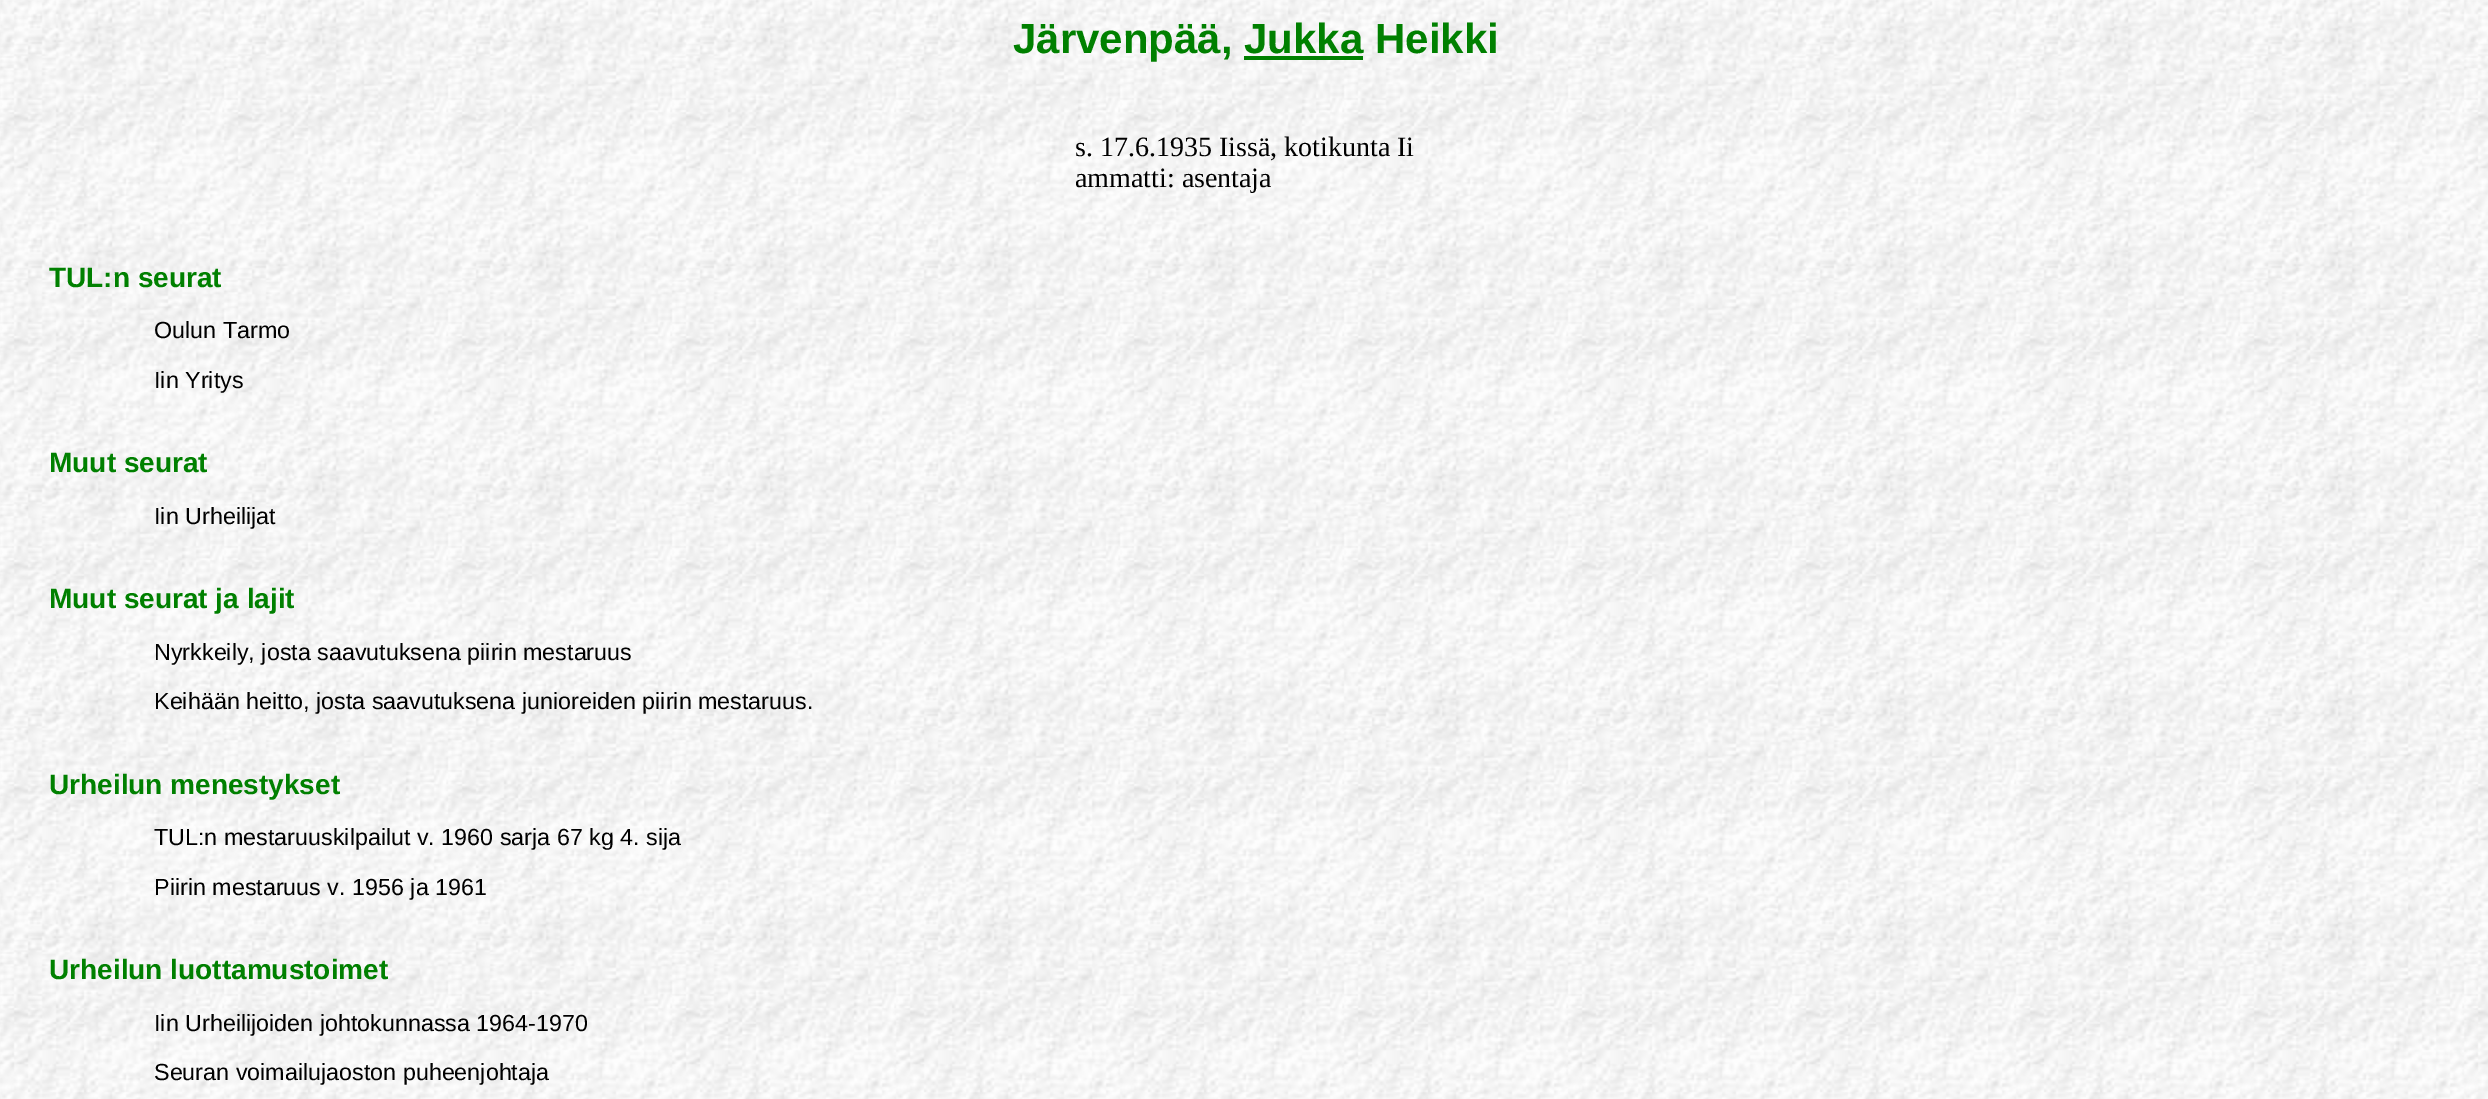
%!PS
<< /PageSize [2488 1099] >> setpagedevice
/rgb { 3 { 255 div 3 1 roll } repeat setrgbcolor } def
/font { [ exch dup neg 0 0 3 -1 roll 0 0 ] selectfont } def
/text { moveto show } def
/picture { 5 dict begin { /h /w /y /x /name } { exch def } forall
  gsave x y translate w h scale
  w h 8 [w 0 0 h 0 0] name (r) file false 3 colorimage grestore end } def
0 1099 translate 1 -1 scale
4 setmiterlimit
255 255 255 rgb
0 0 2488 1099 rectfill
(img_01.rgb) 0 0 2488 1099 picture
0 128 0 rgb
1244 56 119 4 rectfill
/LiberationSans-Bold 42 font
(Järvenpää, Jukka Heikki) 1013 53 text
/LiberationSerif-Regular 28 font
0 0 0 rgb
(s. 17.6.1935 Iissä, kotikunta Ii) 1075 156 text
(ammatti: asentaja) 1075 187 text
/LiberationSans-Bold 28 font
0 128 0 rgb
(TUL:n seurat) 49 287 text
/LiberationSans-Regular 23.3 font
0 0 0 rgb
(Oulun Tarmo) 154 338 text
(Iin Yritys) 154 388 text
/LiberationSans-Bold 28 font
0 128 0 rgb
(Muut seurat) 49 472 text
/LiberationSans-Regular 23.3 font
0 0 0 rgb
(Iin Urheilijat) 154 524 text
/LiberationSans-Bold 28 font
0 128 0 rgb
(Muut seurat ja lajit) 49 608 text
/LiberationSans-Regular 23.3 font
0 0 0 rgb
(Nyrkkeily, josta saavutuksena piirin mestaruus) 154 660 text
(Keihään heitto, josta saavutuksena junioreiden piirin mestaruus.) 154 709 text
/LiberationSans-Bold 28 font
0 128 0 rgb
(Urheilun menestykset) 49 794 text
/LiberationSans-Regular 23.3 font
0 0 0 rgb
(TUL:n mestaruuskilpailut v. 1960 sarja 67 kg 4. sija) 154 845 text
(Piirin mestaruus v. 1956 ja 1961) 154 895 text
/LiberationSans-Bold 28 font
0 128 0 rgb
(Urheilun luottamustoimet) 49 979 text
/LiberationSans-Regular 23.3 font
0 0 0 rgb
(Iin Urheilijoiden johtokunnassa 1964-1970) 154 1031 text
(Seuran voimailujaoston puheenjohtaja) 154 1080 text
showpage
